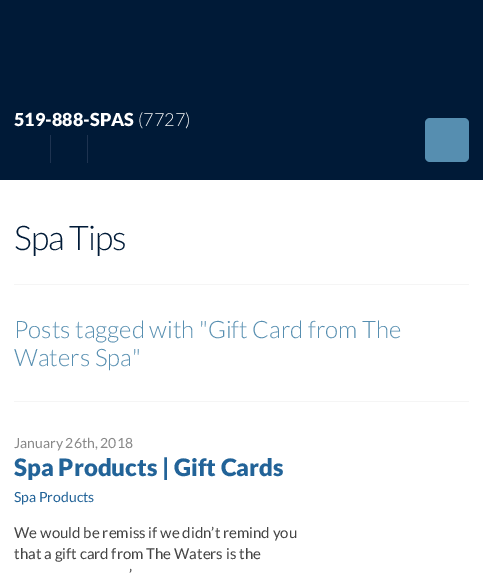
%!PS
<< /PageSize [483 574] >> setpagedevice
/rgb { 3 { 255 div 3 1 roll } repeat setrgbcolor } def
/font { [ exch dup neg 0 0 3 -1 roll 0 0 ] selectfont } def
/text { moveto show } def
/roundrect { 5 dict begin { /r /h /w /y /x } { exch def } forall
  x r add y moveto x w add y 2 copy h add r arct x w add y h add x 1 index r arct
  x y h add x y r arct x y 2 copy exch w add exch r arct closepath end } def
0 574 translate 1 -1 scale
4 setmiterlimit
255 255 255 rgb
0 0 483 574 rectfill
0 26 55 rgb
0 0 483 180 rectfill
86 142 176 rgb
425 118 44 44 5 roundrect fill
30 51 80 rgb
50 135 1 28 rectfill
87 135 1 28 rectfill
245 245 245 rgb
14 284 455 1 rectfill
14 401 455 1 rectfill
/Lato-Black 18 font
255 255 255 rgb
(519-888-SPAS) 14 126 text
/Lato-Light 18 font
(\(7727\)) 138 126 text
/Lato-Light 34 font
0 26 55 rgb
14 250 moveto -1 0 (Spa Tips) ashow
/Lato-Light 24 font
86 142 176 rgb
(Posts tagged with "Gift Card from The) 14 338 text
(Waters Spa") 14 366 text
/Lato-Regular 14 font
136 136 136 rgb
(January 26th, 2018) 14 448 text
/Lato-Black 24 font
34 99 152 rgb
(Spa Products | Gift Cards) 14 476 text
/Lato-Regular 14 font
(Spa Products) 14 502 text
/Lato-Regular 15 font
68 68 68 rgb
(We would be remiss if we didn’t remind you) 14 538 text
(that a gift card from The Waters is the) 14 559 text
(’) 129 580 text
showpage
